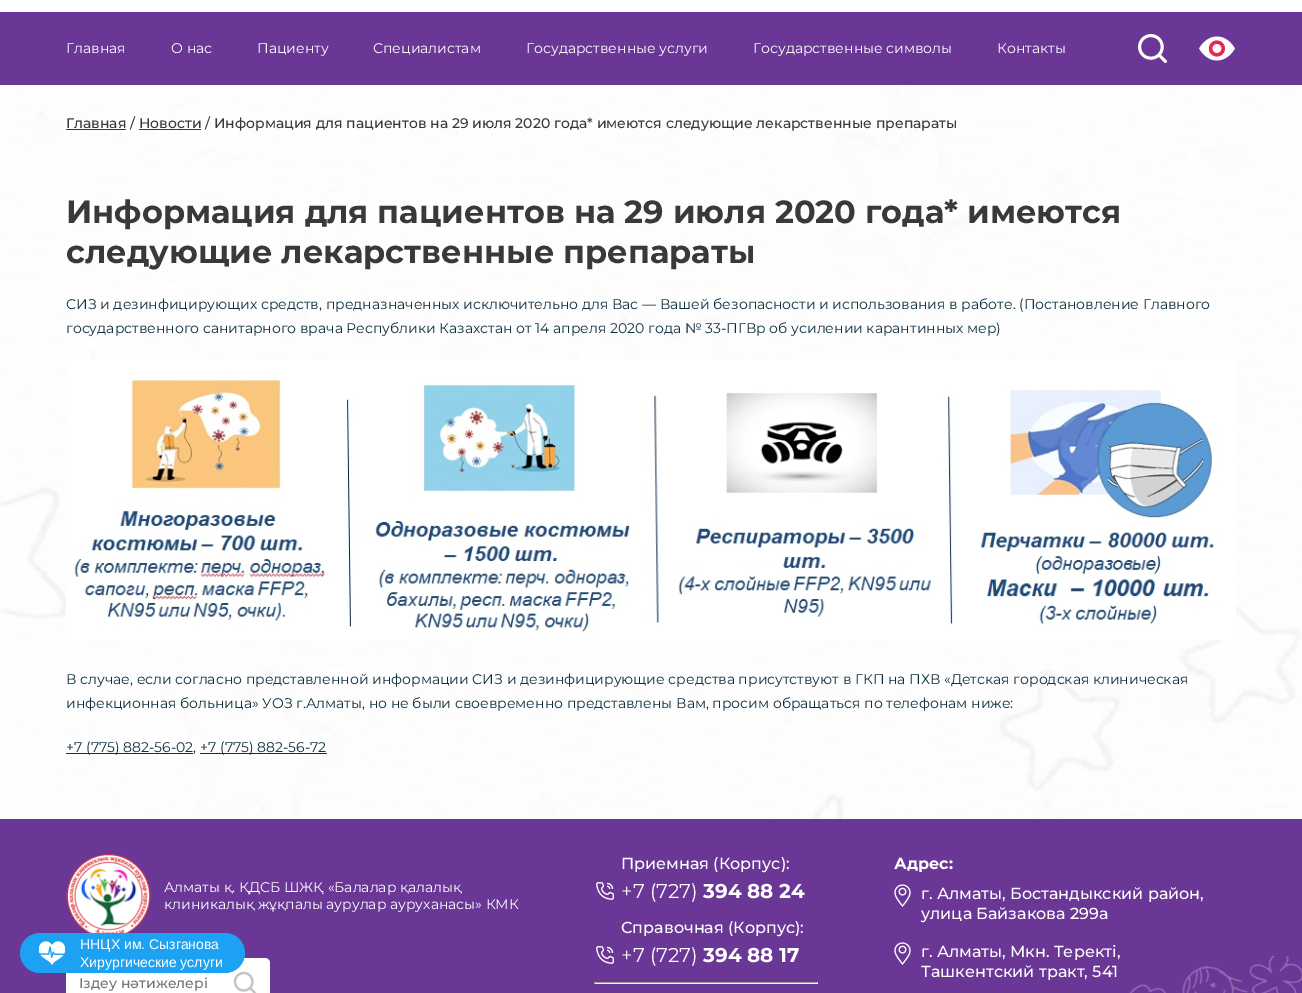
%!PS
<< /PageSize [1302 993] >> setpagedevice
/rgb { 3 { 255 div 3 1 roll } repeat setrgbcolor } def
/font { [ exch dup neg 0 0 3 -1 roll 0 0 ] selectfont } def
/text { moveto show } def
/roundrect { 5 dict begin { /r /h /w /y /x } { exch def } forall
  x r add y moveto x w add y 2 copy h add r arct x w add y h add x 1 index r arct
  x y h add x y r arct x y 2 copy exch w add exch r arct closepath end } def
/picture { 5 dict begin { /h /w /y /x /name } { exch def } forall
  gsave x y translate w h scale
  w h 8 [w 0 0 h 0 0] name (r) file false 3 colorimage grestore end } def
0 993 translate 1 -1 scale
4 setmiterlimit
255 255 255 rgb
0 0 1302 993 rectfill
(img_01.rgb) 0 85 1302 734 picture
106 55 150 rgb
0 12 1302 73 rectfill
(img_02.rgb) 1138 34 29 29 picture
(img_03.rgb) 1199 36 36 25 picture
57 57 57 rgb
66 129 60 1 rectfill
139 129 62 1 rectfill
(img_04.rgb) 66 360 1170 280 picture
15 48 64 rgb
66 753 127 1 rectfill
200 753 127 1 rectfill
106 55 150 rgb
0 819 1302 174 rectfill
(img_05.rgb) 1129 956 173 37 picture
(img_06.rgb) 66 854 85 79 picture
255 255 255 rgb
66 958 204 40 5 roundrect fill
(img_07.rgb) 233 971 24 22 picture
(img_08.rgb) 596 882 18 18 picture
(img_08.rgb) 596 946 18 18 picture
159 159 159 rgb
594 982 224 1 rectfill
238 238 238 rgb
817 982 1 2 rectfill
594 983 224 1 rectfill
159 159 159 rgb
594 982 1 2 rectfill
(img_09.rgb) 894 884 17 23 picture
(img_09.rgb) 894 942 17 23 picture
29 161 242 rgb
20 933 225 40 20 roundrect fill
(img_10.rgb) 39 941 26 24 picture
/Montserrat-Regular 14 font
255 255 255 rgb
(Главная) 66 53 text
(О нас) 171 53 text
(Пациенту) 257 53 text
(Специалистам) 373 53 text
(Государственные услуги) 526 53 text
(Государственные символы) 753 53 text
(Контакты) 997 53 text
/Montserrat-Medium 14 font
57 57 57 rgb
(Главная / Новости / Информация для пациентов на 29 июля 2020 года* имеются следующие лекарственные препараты) 66 128 text
/Montserrat-Bold 32 font
(Информация для пациентов на 29 июля 2020 года* имеются) 66 223 text
(следующие лекарственные препараты) 66 263 text
/Montserrat-Regular 14 font
15 48 64 rgb
(СИЗ и дезинфицирующих средств, предназначенных исключительно для Вас — Вашей безопасности и использования в работе. \(Постановление Главного) 66 309 text
(государственного санитарного врача Республики Казахстан от 14 апреля 2020 года № 33-ПГВр об усилении карантинных мер\)) 66 333 text
(В случае, если согласно представленной информации СИЗ и дезинфицирующие средства присутствуют в ГКП на ПХВ «Детская городская клиническая) 66 684 text
(инфекционная больница» УОЗ г.Алматы, но не были своевременно представлены Вам, просим обращаться по телефонам ниже:) 66 708 text
(+7 \(775\) 882-56-02,) 66 752 text
(+7 \(775\) 882-56-72) 200 752 text
255 255 255 rgb
(Алматы қ. ҚДСБ ШЖҚ «Балалар қалалық) 164 892 text
(клиникалық жұқпалы аурулар ауруханасы» КМК) 164 909 text
/Montserrat-Medium 14 font
117 117 117 rgb
(Іздеу нәтижелері) 79 988 text
/Montserrat-Medium 16 font
255 255 255 rgb
(Приемная \(Корпус\):) 621 869 text
/Montserrat-Regular 20 font
(+7 \(727\)) 621 898 text
/Montserrat-Bold 20 font
(394 88 24) 703 898 text
/Montserrat-Medium 16 font
(Справочная \(Корпус\):) 621 933 text
/Montserrat-Regular 20 font
(+7 \(727\)) 621 962 text
/Montserrat-Bold 20 font
(394 88 17) 703 962 text
/Montserrat-Bold 16 font
(Адрес:) 894 869 text
/Montserrat-Medium 16 font
(г. Алматы, Бостандыкский район,) 921 899 text
(улица Байзакова 299а) 921 919 text
(г. Алматы, Мкн. Теректі,) 921 957 text
(Ташкентский тракт, 541) 921 977 text
/LiberationSans-Regular 14 font
(ННЦХ им. Сызганова) 80 949 text
(Хирургические услуги) 80 967 text
showpage
